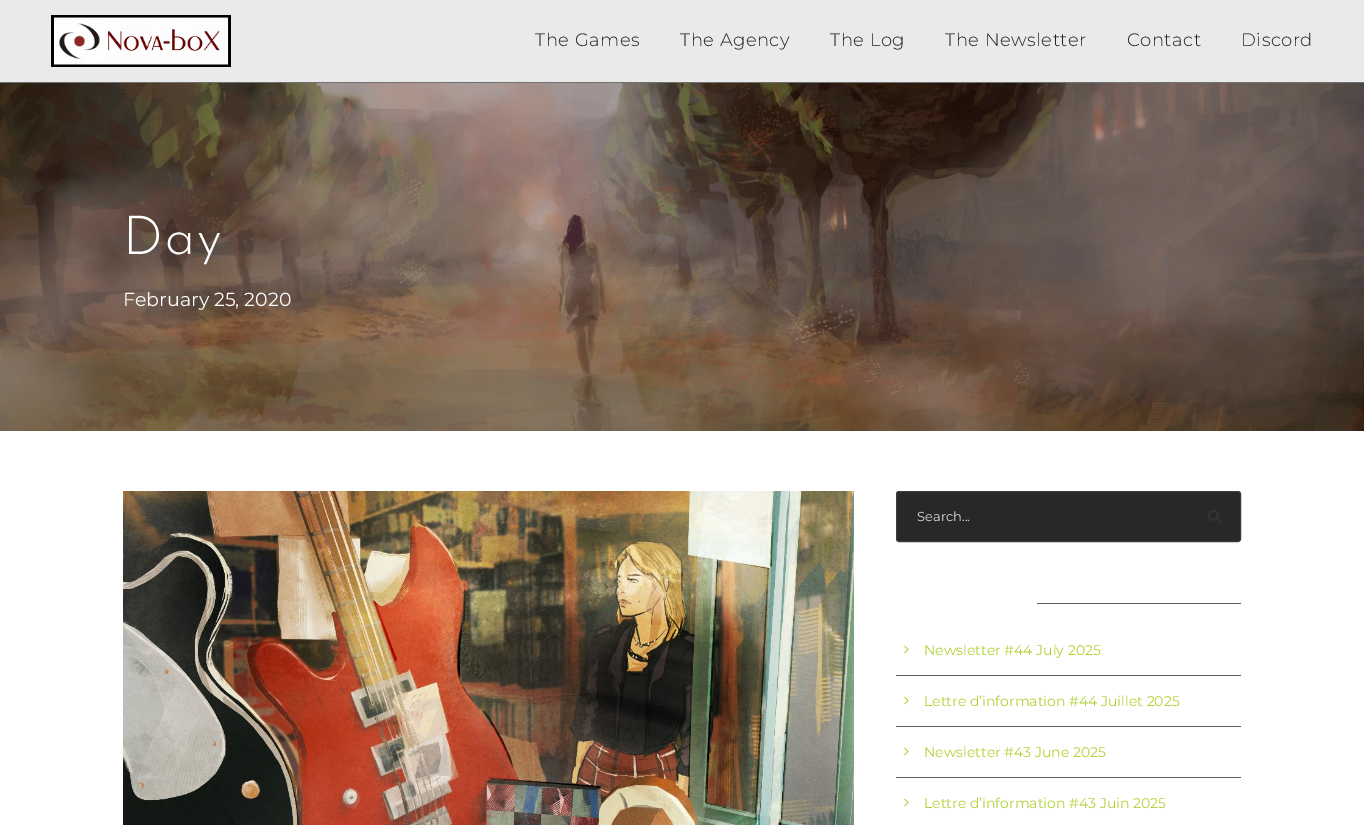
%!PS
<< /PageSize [1364 825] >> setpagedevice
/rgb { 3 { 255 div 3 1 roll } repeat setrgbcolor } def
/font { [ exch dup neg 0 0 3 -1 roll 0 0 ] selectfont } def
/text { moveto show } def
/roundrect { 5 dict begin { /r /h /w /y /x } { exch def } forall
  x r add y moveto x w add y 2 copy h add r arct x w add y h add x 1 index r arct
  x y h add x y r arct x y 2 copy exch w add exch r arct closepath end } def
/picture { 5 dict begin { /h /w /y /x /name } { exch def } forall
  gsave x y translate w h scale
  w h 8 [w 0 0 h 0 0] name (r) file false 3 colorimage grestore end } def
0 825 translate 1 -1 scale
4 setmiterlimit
255 255 255 rgb
0 0 1364 825 rectfill
112 112 112 rgb
0 82 1364 1 rectfill
234 234 234 rgb
0 0 1364 82 rectfill
(img_01.rgb) 51 15 180 52 picture
(img_02.rgb) 0 83 1364 348 picture
(img_03.rgb) 123 491 731 334 picture
40 40 40 rgb
896.5 491.5 344 50 2.5 roundrect gsave fill grestore
61 61 61 rgb
stroke
(img_04.rgb) 1208 510 13 13 picture
91 91 91 rgb
1037 603 204 1 rectfill
896 675 345 1 rectfill
(img_05.rgb) 904 645 5 9 picture
896 726 345 1 rectfill
(img_05.rgb) 904 696 5 9 picture
896 777 345 1 rectfill
(img_05.rgb) 904 747 5 9 picture
(img_05.rgb) 904 798 5 9 picture
/Montserrat-Light 18 font
34 34 34 rgb
535 46 moveto 0.5 0 (The Games) ashow
680 46 moveto 0.5 0 (The Agency) ashow
830 46 moveto 0.5 0 (The Log) ashow
945 46 moveto 0.5 0 (The Newsletter) ashow
1127 46 moveto 0.5 0 (Contact) ashow
1241 46 moveto 0.5 0 (Discord) ashow
/JosefinSans-Light 54 font
255 255 255 rgb
123 254 moveto 2 0 (Day) ashow
/Montserrat-Regular 19 font
(February 25, 2020) 123 306 text
/Montserrat-Regular 13 font
224 224 224 rgb
(Search...) 917 521 text
/Montserrat-Regular 14 font
177 210 52 rgb
(Newsletter #44 July 2025) 924 655 text
(Lettre d’information #44 Juillet 2025) 924 706 text
(Newsletter #43 June 2025) 924 757 text
(Lettre d’information #43 Juin 2025) 924 808 text
showpage
